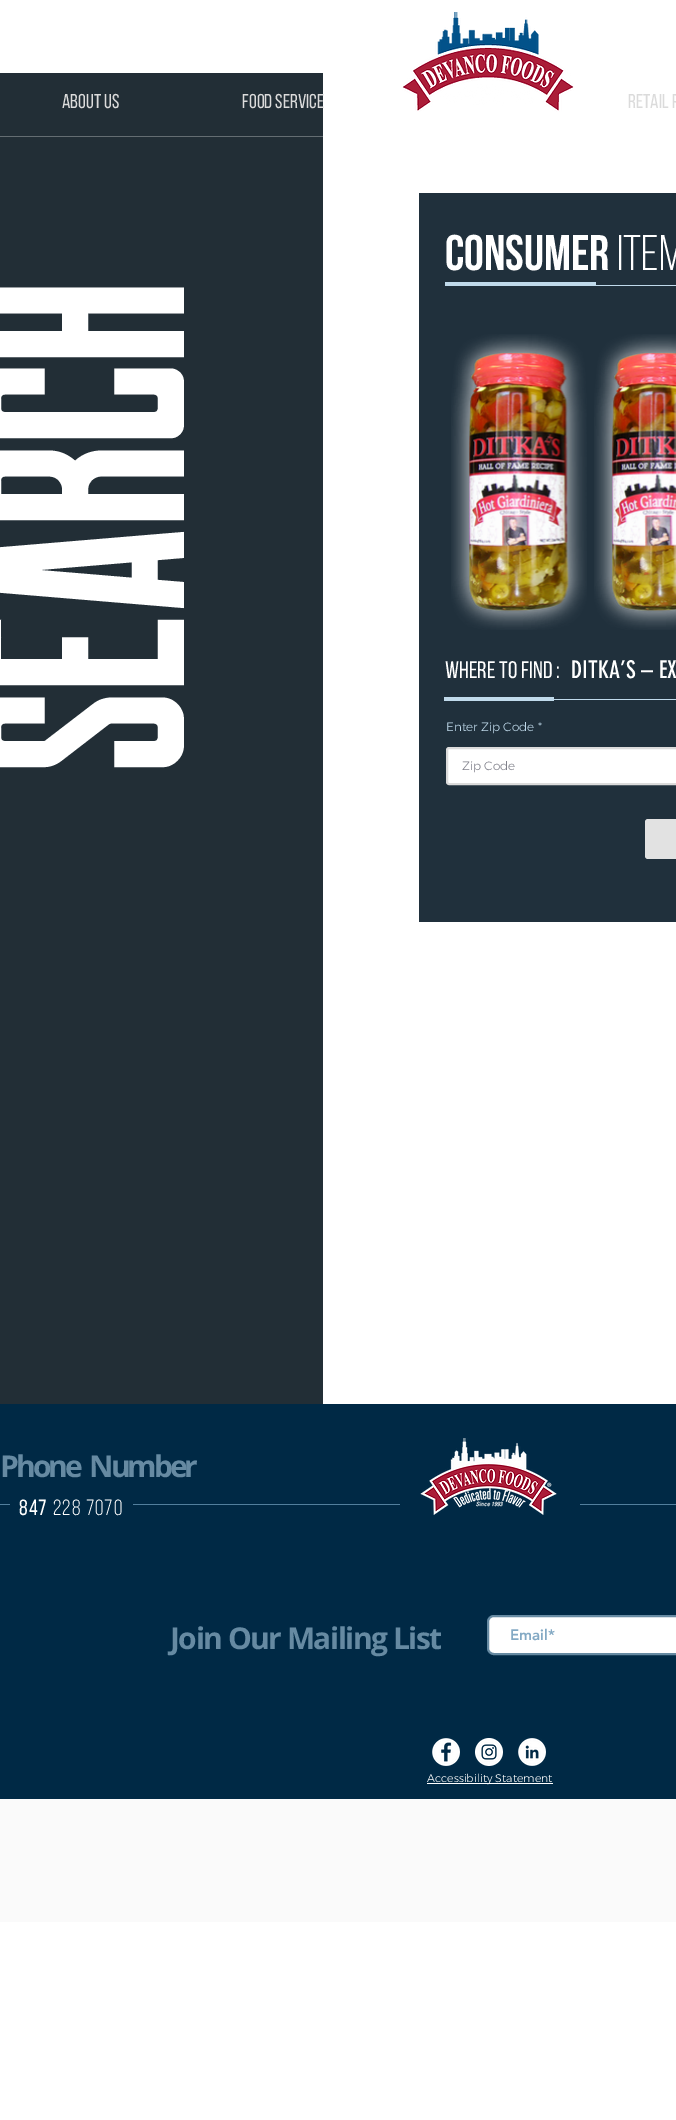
%!PS
<< /PageSize [676 2120] >> setpagedevice
/rgb { 3 { 255 div 3 1 roll } repeat setrgbcolor } def
/font { [ exch dup neg 0 0 3 -1 roll 0 0 ] selectfont } def
/text { moveto show } def
/roundrect { 5 dict begin { /r /h /w /y /x } { exch def } forall
  x r add y moveto x w add y 2 copy h add r arct x w add y h add x 1 index r arct
  x y h add x y r arct x y 2 copy exch w add exch r arct closepath end } def
/picture { 5 dict begin { /h /w /y /x /name } { exch def } forall
  gsave x y translate w h scale
  w h 8 [w 0 0 h 0 0] name (r) file false 3 colorimage grestore end } def
0 2120 translate 1 -1 scale
4 setmiterlimit
255 255 255 rgb
0 0 676 2120 rectfill
(img_01.rgb) 402 12 172 100 picture
34 46 54 rgb
0 73 323 1331 rectfill
100 109 114 rgb
0 136 323 1 rectfill
32 48 60 rgb
419 193 257 729 rectfill
192 218 235 rgb
445 282 151 4 rectfill
596 285 80 1 rectfill
(img_02.rgb) 451 334 136 296 picture
(img_03.rgb) 594 334 82 296 picture
444 697 110 4 rectfill
554 699 122 1 rectfill
255 255 255 rgb
447 748 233 36 2 roundrect gsave fill grestore
219 219 219 rgb
2 setlinewidth
stroke
226 226 226 rgb
645 819 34 40 3 roundrect fill
0 41 69 rgb
0 1404 676 395 rectfill
82 127 157 rgb
0 1504 676 1 rectfill
0 41 69 rgb
400 1504 180 1 rectfill
(img_04.rgb) 420 1438 137 77 picture
10 1504 38 1 rectfill
48 1500 5 5 rectfill
53 1504 80 1 rectfill
255 255 255 rgb
494 1616 moveto 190 0 rlineto 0 38 rlineto -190 0 rlineto -3.5 0 -6 -2.5 -6 -6 rcurveto 0 -26 rlineto 0 -3.5 2.5 -6 6 -6 rcurveto closepath gsave fill grestore
102 138 162 rgb
stroke
(img_05.rgb) 432 1738 28 28 picture
(img_06.rgb) 475 1738 28 28 picture
(img_07.rgb) 518 1738 28 28 picture
255 255 255 rgb
427 1783 126 1 rectfill
250 250 250 rgb
0 1799 676 123 rectfill
/BebasNeue-Regular 20 font
219 219 219 rgb
(ABOUT US) 62 108 text
(FOOD SERVICE) 242 108 text
(RETAIL P) 628 108 text
/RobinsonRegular-Regular 300 font
255 255 255 rgb
gsave 184 773 translate -90 rotate 0 0 moveto (SEARCH) show grestore
/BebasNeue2-Regular 50 font
(Consumer) 445 270 text
/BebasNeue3-Regular 50 font
(Item) 617 270 text
/BebasNeue-Regular 24 font
(Where to find :) 445 678 text
/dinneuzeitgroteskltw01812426-Regular 24 font
(DITKA’S – EX) 571 678 text
/Montserrat-Light 12 font
192 218 235 rgb
(Enter Zip Code *) 446 731 text
127 128 138 rgb
(Zip Code) 462 770 text
/OpenSans-Bold 30 font
102 138 162 rgb
0 1477 moveto -3 0 (Phone  Number) ashow
/BebasNeue-Regular 22 font
255 255 255 rgb
19 1515 moveto 1 0 (847) ashow
/BebasNeue3-Regular 22 font
53 1515 moveto 1 0 (228 7070) ashow
/OpenSans-Bold 30 font
102 138 162 rgb
170 1649 moveto -1.5 0 (Join Our Mailing List) ashow
/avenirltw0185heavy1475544-Black 15 font
131 169 196 rgb
(Email*) 510 1640 text
/Montserrat-Light 11 font
255 255 255 rgb
(Accessibility Statement) 427 1782 text
showpage
